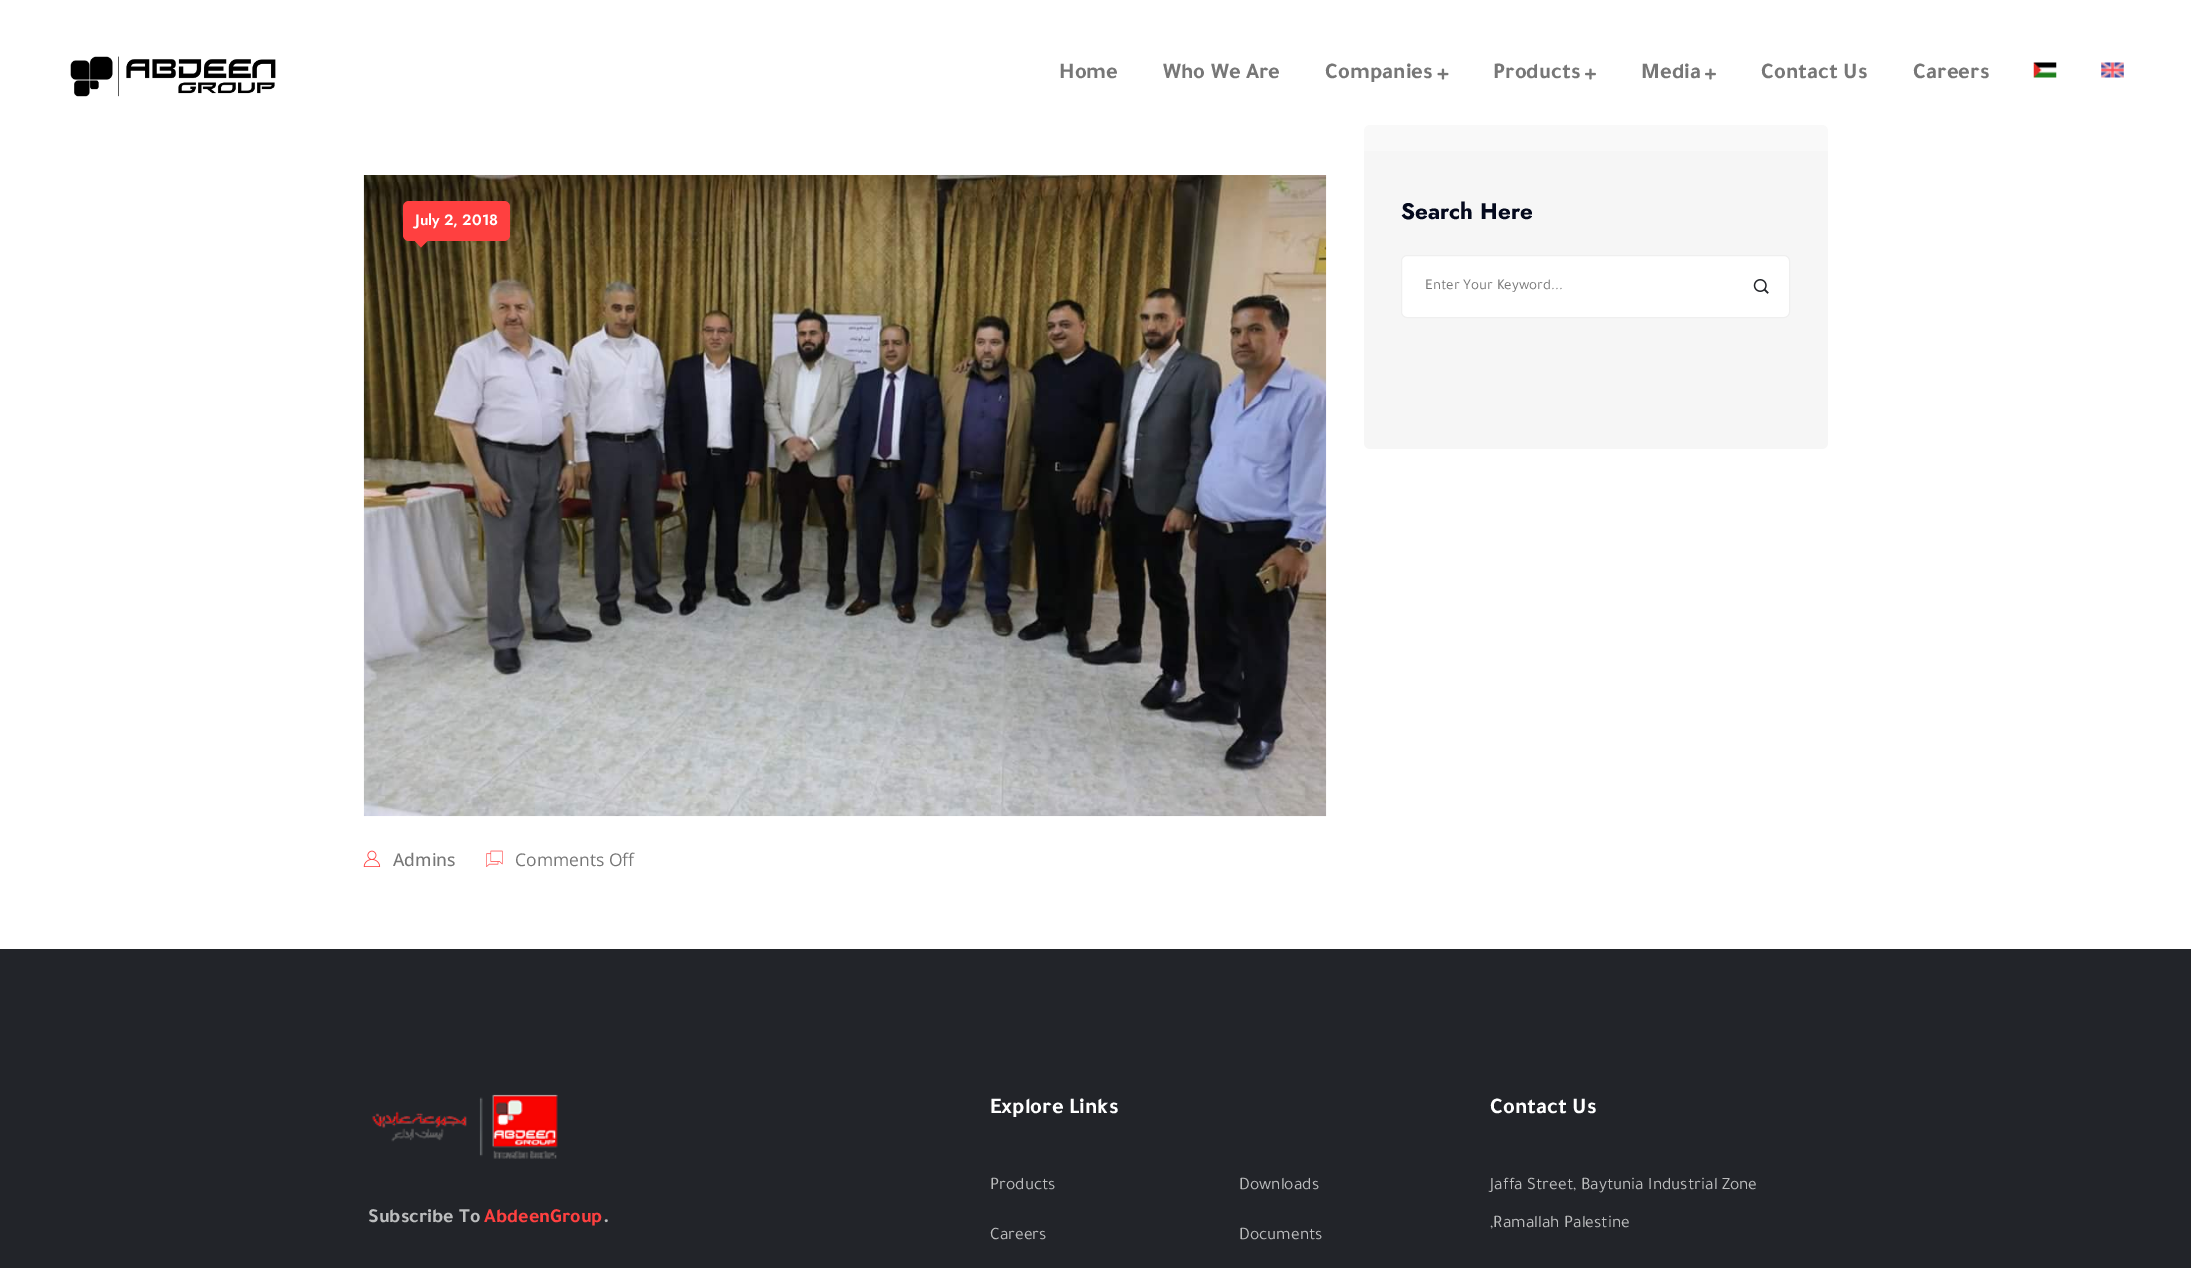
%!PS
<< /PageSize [2191 1268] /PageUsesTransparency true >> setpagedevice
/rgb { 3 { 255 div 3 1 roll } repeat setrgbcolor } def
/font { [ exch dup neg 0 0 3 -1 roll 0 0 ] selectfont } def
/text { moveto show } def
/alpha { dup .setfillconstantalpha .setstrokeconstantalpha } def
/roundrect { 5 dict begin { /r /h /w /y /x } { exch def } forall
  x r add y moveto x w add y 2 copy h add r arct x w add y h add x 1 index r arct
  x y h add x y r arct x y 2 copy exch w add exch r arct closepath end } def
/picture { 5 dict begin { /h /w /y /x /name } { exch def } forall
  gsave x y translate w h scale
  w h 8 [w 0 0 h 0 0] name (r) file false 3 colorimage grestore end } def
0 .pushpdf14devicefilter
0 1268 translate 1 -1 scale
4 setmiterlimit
255 255 255 rgb
0 0 2191 1268 rectfill
246 246 246 rgb
1364 125 464 324 6 roundrect fill
0.3 alpha
255 255 255 rgb
1364 125 464 26 rectfill
1 alpha
(img_01.rgb) 70 56 206 41 picture
(img_02.rgb) 1437 68 12 12 picture
(img_03.rgb) 1585 68 11 12 picture
(img_03.rgb) 1705 68 11 12 picture
(img_04.rgb) 2033 62 24 16 picture
(img_05.rgb) 2101 62 23 16 picture
(img_06.rgb) 363 175 964 642 picture
255 64 64 rgb
403 201 107 40 6 roundrect fill
415 241 moveto 12.5 0 rlineto -6.5 6.5 rlineto closepath fill
(img_07.rgb) 363 850 18 17 picture
(img_08.rgb) 486 850 17 17 picture
255 255 255 rgb
1401.5 255.5 388 62 5.5 roundrect gsave fill grestore
239 239 239 rgb
stroke
(img_09.rgb) 1753 279 16 15 picture
34 36 41 rgb
0 949 2191 319 rectfill
(img_10.rgb) 372 1094 186 65 picture
/Tajawal-Bold 22.5 font
119 119 119 rgb
(Home) 1059 78 text
(Who We Are) 1163 78 text
(Companies) 1325 78 text
(Products) 1493 78 text
(Media) 1641 78 text
(Contact Us) 1761 78 text
(Careers) 1913 78 text
/Jost-SemiBold 15 font
255 255 255 rgb
(July 2, 2018) 415 225 text
/OpenSans-Medium 17.5 font
119 119 119 rgb
(Admins) 393 866 text
/OpenSans-Regular 17.5 font
(Comments Off) 515 866 text
/Jost-Bold 22.5 font
4 9 29 rgb
(Search Here) 1401 219 text
/Tajawal-Regular 15 font
119 119 119 rgb
(Enter Your Keyword...) 1425 289 text
/Tajawal-Bold 20 font
188 189 190 rgb
(Subscribe To) 368 1222 text
255 64 64 rgb
(AbdeenGroup) 484 1222 text
188 189 190 rgb
(.) 603 1222 text
/Tajawal-Bold 22.5 font
255 255 255 rgb
(Explore Links) 990 1113 text
/Tajawal-Regular 17.5 font
188 189 190 rgb
(Products) 990 1189 text
(Careers) 990 1239 text
(Downloads) 1239 1189 text
(Documents) 1239 1239 text
/Tajawal-Bold 22.5 font
255 255 255 rgb
(Contact Us) 1490 1113 text
/Tajawal-Regular 17.5 font
188 189 190 rgb
(Jaffa Street, Baytunia Industrial Zone) 1490 1189 text
(,Ramallah Palestine) 1490 1227 text
.poppdf14devicefilter showpage
